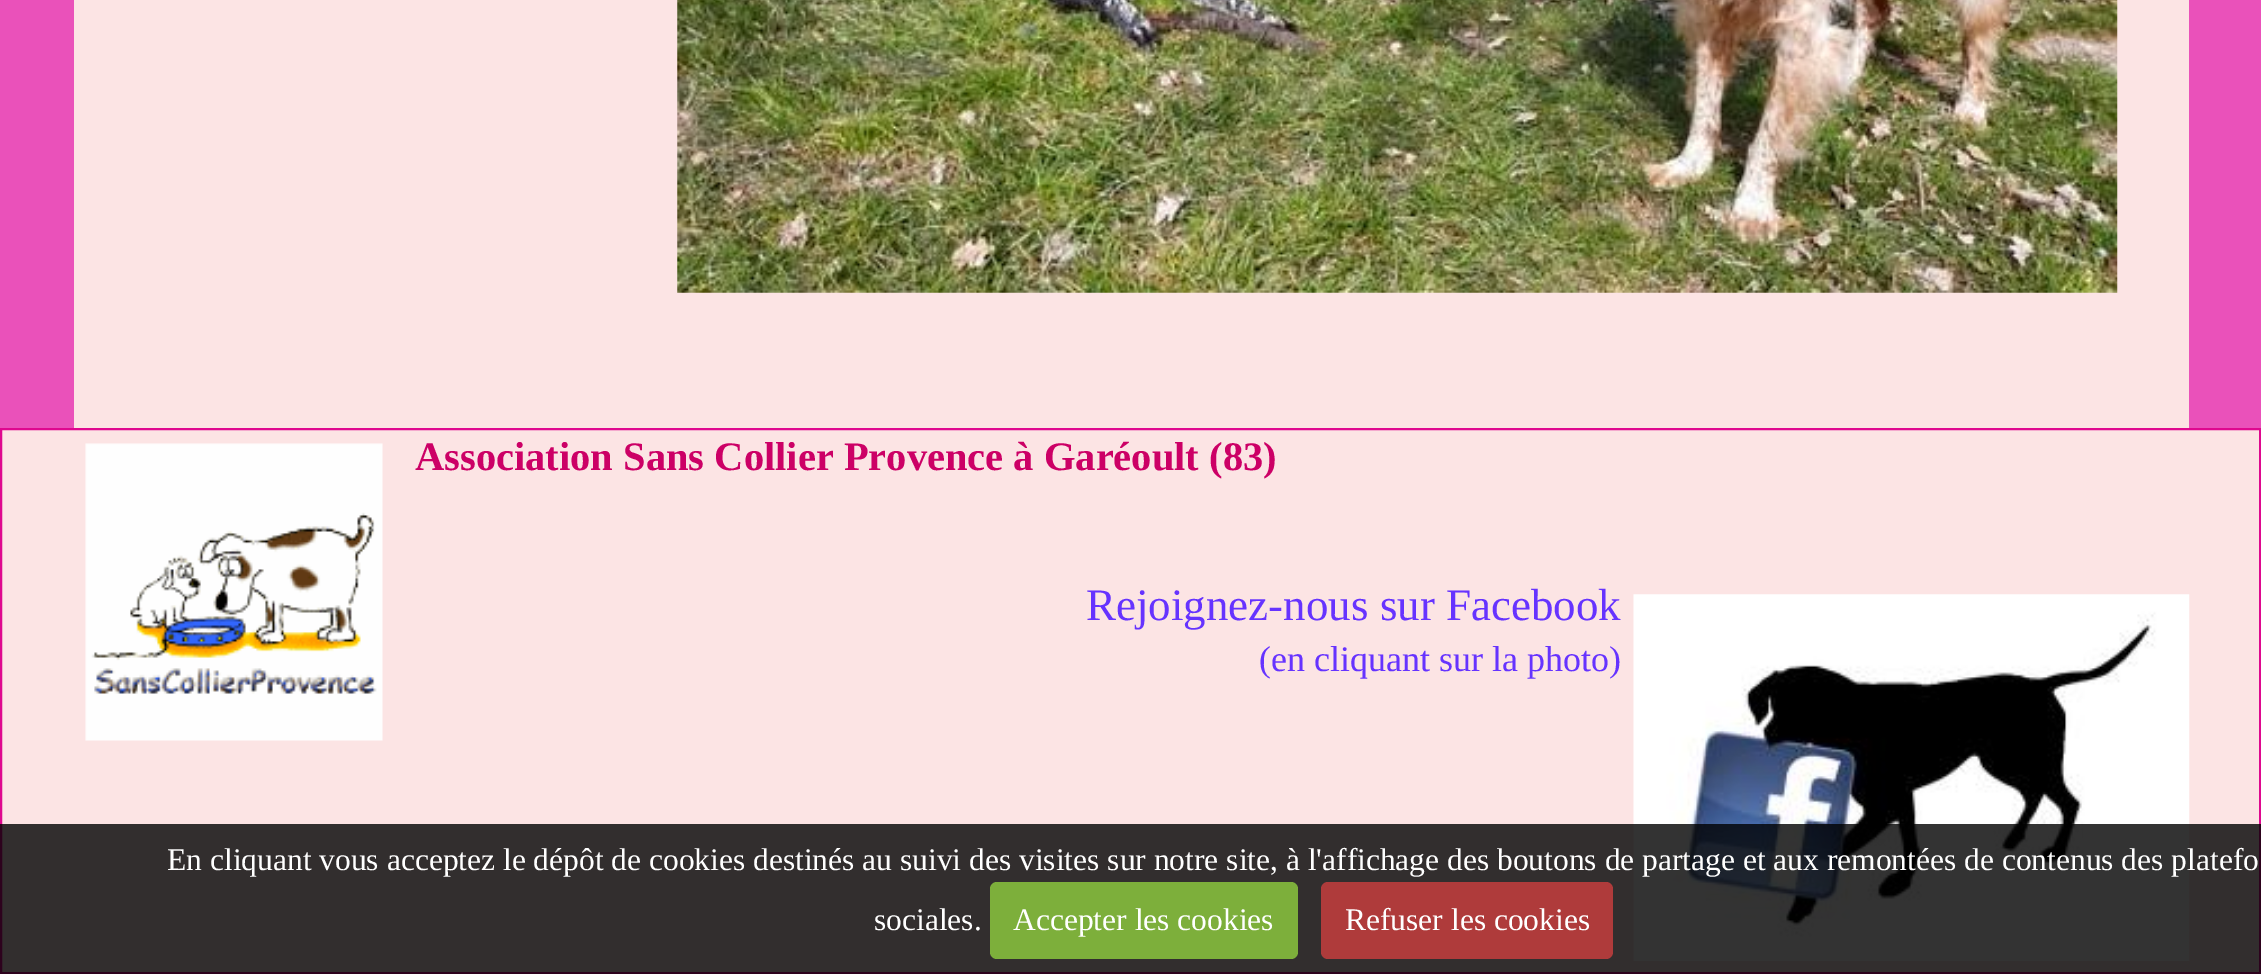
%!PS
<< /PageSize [2261 974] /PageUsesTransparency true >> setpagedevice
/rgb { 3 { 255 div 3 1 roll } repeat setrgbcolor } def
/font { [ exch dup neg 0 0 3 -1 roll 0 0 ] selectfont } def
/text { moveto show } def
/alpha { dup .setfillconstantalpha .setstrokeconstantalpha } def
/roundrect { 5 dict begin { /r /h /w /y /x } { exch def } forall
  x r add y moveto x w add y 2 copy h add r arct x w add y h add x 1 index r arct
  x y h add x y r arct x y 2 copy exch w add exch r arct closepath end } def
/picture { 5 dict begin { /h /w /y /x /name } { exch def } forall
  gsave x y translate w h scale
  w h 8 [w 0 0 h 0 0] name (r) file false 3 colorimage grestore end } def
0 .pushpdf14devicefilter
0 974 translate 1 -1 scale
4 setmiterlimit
234 81 186 rgb
0 0 2261 974 rectfill
252 228 228 rgb
74 0 2115 428 rectfill
(img_01.rgb) 677 0 1441 293 picture
1 429 moveto 2259 0 rlineto 0 544 rlineto -2259 0 rlineto closepath gsave fill grestore
223 8 143 rgb
2 setlinewidth
stroke
(img_02.rgb) 85 443 298 298 picture
(img_03.rgb) 1633 594 557 367 picture
0.8 alpha
0 0 0 rgb
0 824 2261 150 rectfill
1 alpha
125 175 59 rgb
990 882 308 77 7 roundrect fill
175 59 59 rgb
1321 882 292 77 7 roundrect fill
/LiberationSerif-Bold 40.5 font
204 0 102 rgb
(Association Sans Collier Provence à Garéoult \(83\)) 415 470 text
/LiberationSerif-Regular 45 font
102 51 255 rgb
(Rejoignez-nous sur Facebook) 1086 620 text
/LiberationSerif-Regular 36 font
(\(en cliquant sur la photo\)) 1259 671 text
/LiberationSerif-Regular 31.5 font
255 255 255 rgb
(En cliquant vous acceptez le dépôt de cookies destinés au suivi des visites sur notre site, à l'affichage des boutons de partage et aux remontées de contenus des platefo) 167 870 text
(sociales.) 874 930 text
(Accepter les cookies) 1013 930 text
(Refuser les cookies) 1345 930 text
.poppdf14devicefilter showpage
